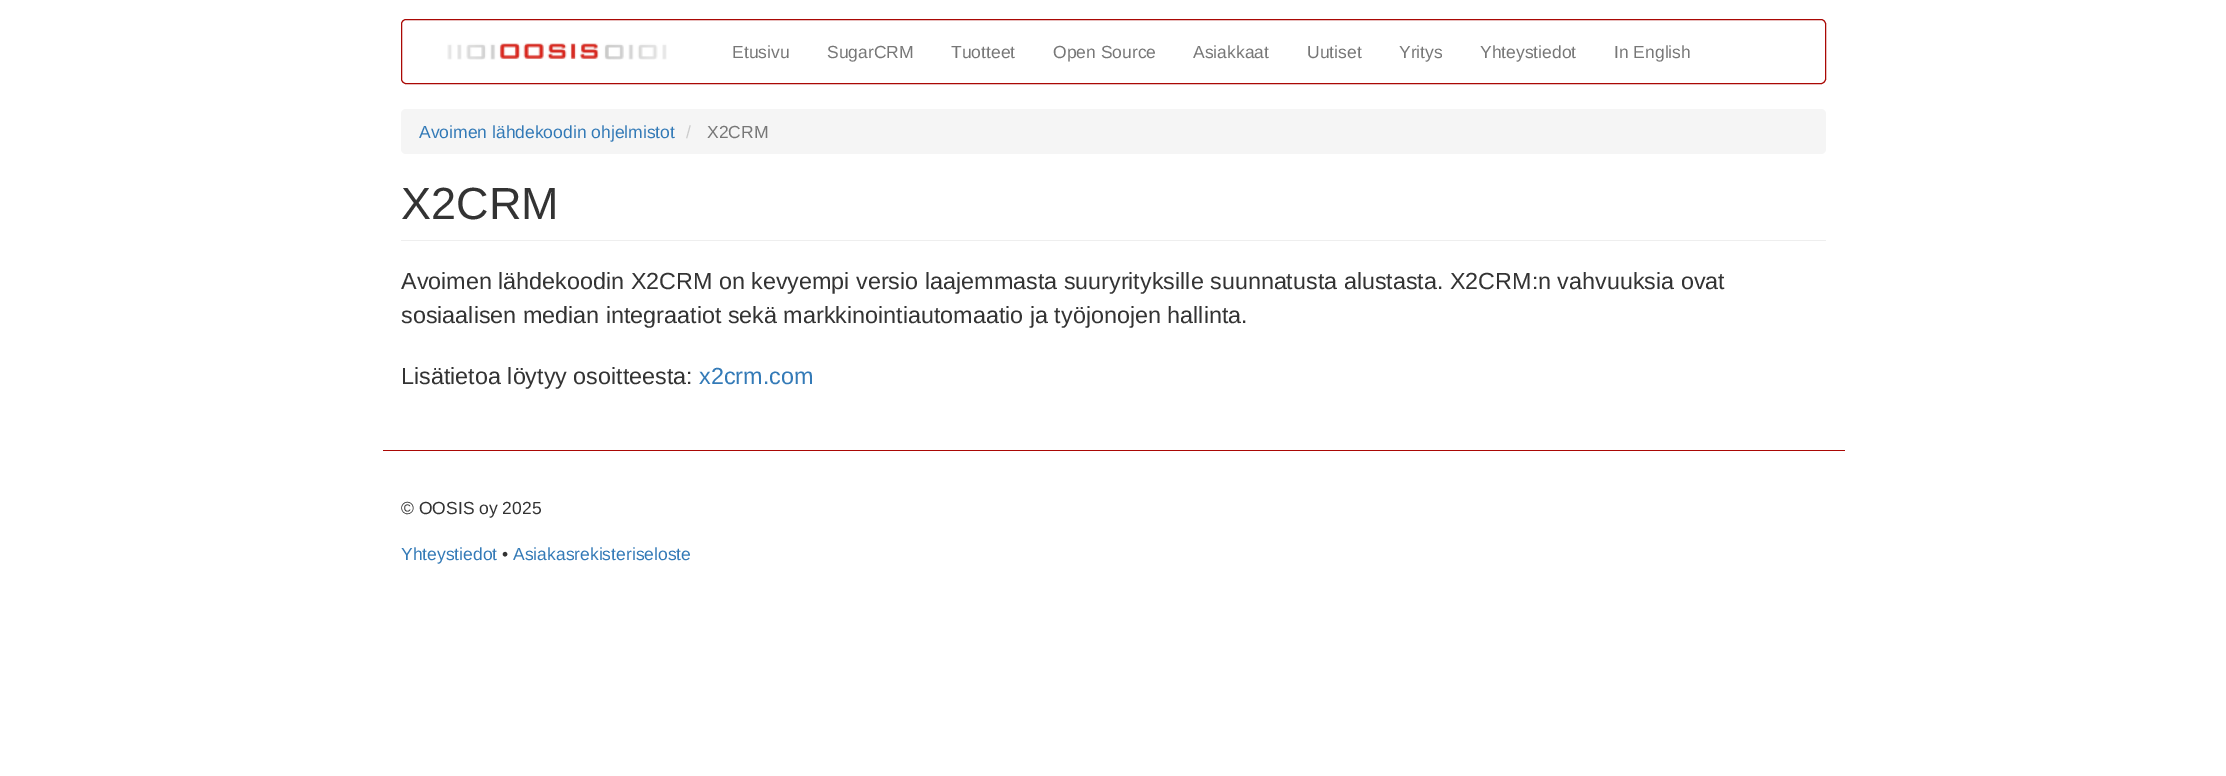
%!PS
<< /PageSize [2226 776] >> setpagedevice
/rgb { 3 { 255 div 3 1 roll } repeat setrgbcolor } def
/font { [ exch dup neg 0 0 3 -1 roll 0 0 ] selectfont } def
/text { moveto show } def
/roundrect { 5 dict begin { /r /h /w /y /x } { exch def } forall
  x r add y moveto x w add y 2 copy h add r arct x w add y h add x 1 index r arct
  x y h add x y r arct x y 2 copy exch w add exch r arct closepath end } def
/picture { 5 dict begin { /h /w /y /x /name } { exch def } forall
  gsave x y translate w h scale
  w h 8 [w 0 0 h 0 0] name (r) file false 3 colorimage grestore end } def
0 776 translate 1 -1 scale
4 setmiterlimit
255 255 255 rgb
0 0 2226 776 rectfill
170 8 4 rgb
401.5 19.5 1424 64 4.5 roundrect stroke
(img_01.rgb) 447 43 220 17 picture
245 245 245 rgb
401 109 1425 45 5 roundrect fill
238 238 238 rgb
401 240 1425 1 rectfill
170 8 4 rgb
383 450 1462 1 rectfill
/LiberationSans-Regular 17.5 font
119 119 119 rgb
(Etusivu) 732 58 text
(SugarCRM) 827 58 text
(Tuotteet) 951 58 text
(Open Source) 1053 58 text
(Asiakkaat) 1193 58 text
(Uutiset) 1307 58 text
(Yritys) 1399 58 text
(Yhteystiedot) 1480 58 text
(In English) 1614 58 text
51 122 183 rgb
(Avoimen lähdekoodin ohjelmistot) 419 138 text
204 204 204 rgb
(/) 686 138 text
119 119 119 rgb
(X2CRM) 707 138 text
/LiberationSans-Regular 45 font
51 51 51 rgb
(X2CRM) 401 219 text
/LiberationSans-Regular 23.33 font
(Avoimen lähdekoodin X2CRM on kevyempi versio laajemmasta suuryrityksille suunnatusta alustasta. X2CRM:n vahvuuksia ovat) 401 289 text
(sosiaalisen median integraatiot sekä markkinointiautomaatio ja työjonojen hallinta.) 401 323 text
(Lisätietoa löytyy osoitteesta:) 401 384 text
51 122 183 rgb
(x2crm.com) 699 384 text
/LiberationSans-Regular 17.5 font
51 51 51 rgb
(© OOSIS oy 2025) 401 514 text
51 122 183 rgb
(Yhteystiedot) 401 560 text
51 51 51 rgb
(•) 502 560 text
51 122 183 rgb
(Asiakasrekisteriseloste) 513 560 text
showpage
